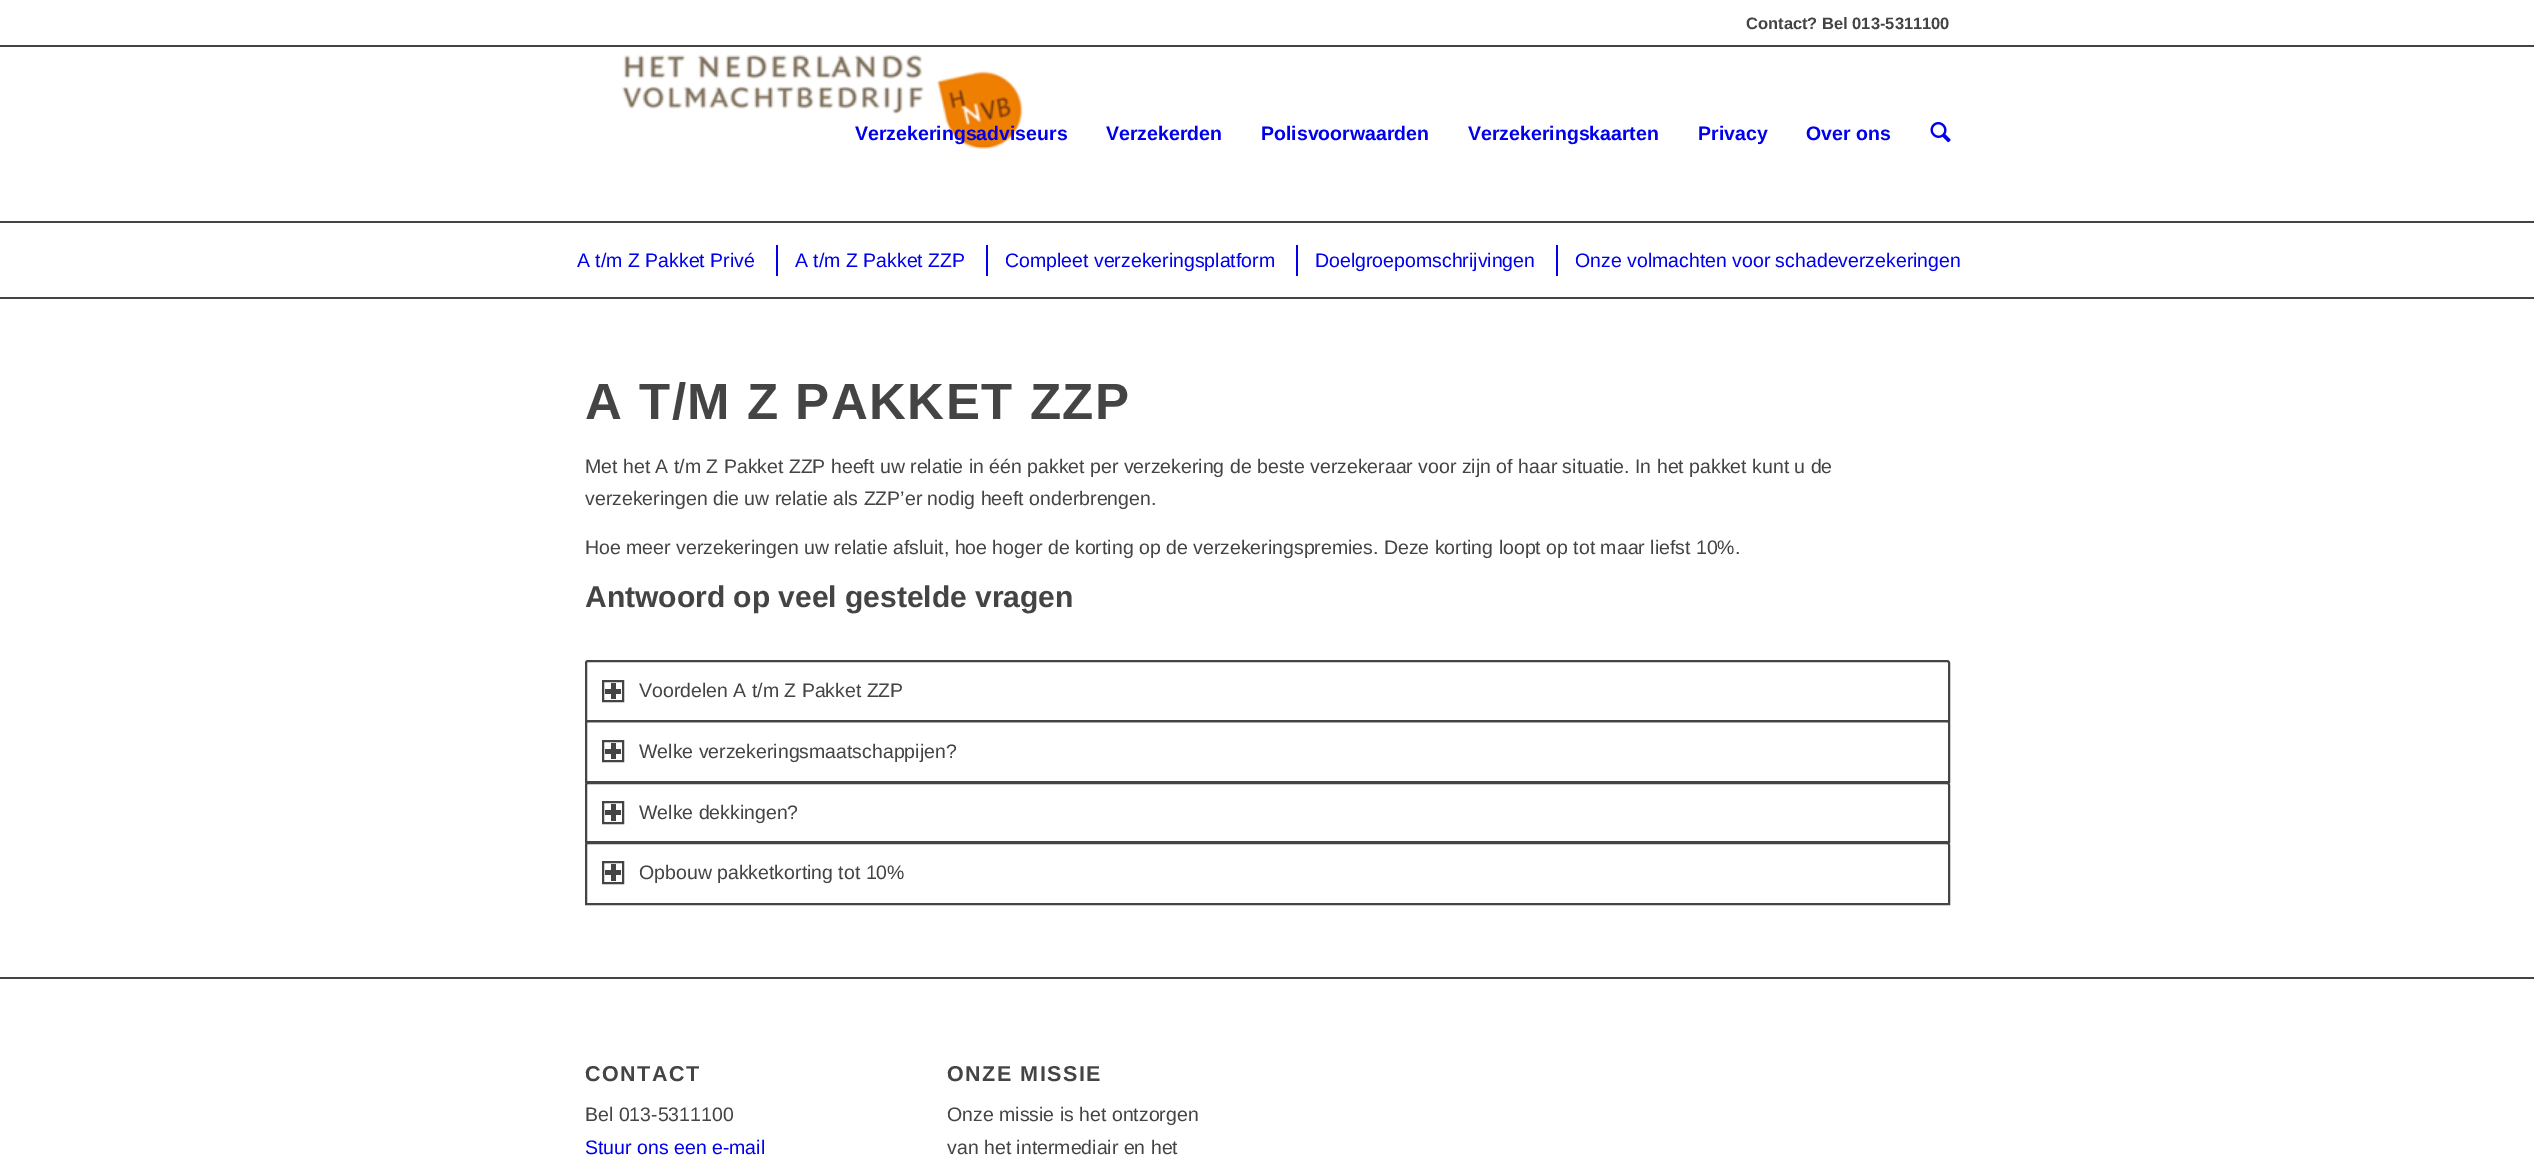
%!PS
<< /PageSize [2534 1175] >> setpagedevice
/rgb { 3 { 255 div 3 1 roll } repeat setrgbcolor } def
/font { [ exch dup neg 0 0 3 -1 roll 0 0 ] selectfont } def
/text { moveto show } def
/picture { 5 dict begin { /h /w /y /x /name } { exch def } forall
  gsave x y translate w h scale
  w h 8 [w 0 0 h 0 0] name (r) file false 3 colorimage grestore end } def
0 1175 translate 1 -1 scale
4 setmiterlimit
255 255 255 rgb
0 0 2534 1175 rectfill
68 68 68 rgb
0 45 2534 2 rectfill
(img_01.rgb) 585 47 450 102 picture
(img_02.rgb) 1930 122 21 21 picture
0 221 2534 2 rectfill
0 0 238 rgb
776 245 2 31 rectfill
986 245 2 31 rectfill
1296 245 2 31 rectfill
1556 245 2 31 rectfill
68 68 68 rgb
0 297 2534 2 rectfill
2 setlinewidth
588 661 moveto 1359 0 rlineto 1 0 2 1 2 2 rcurveto 0 58 rlineto -1363 0 rlineto 0 -58 rlineto 0 -1 1 -2 2 -2 rcurveto closepath stroke
603 681 20 20 rectstroke
611 683 5 16 rectfill
605 689 16 5 rectfill
588 721 moveto 1359 0 rlineto 1 0 2 1 2 2 rcurveto 0 59 rlineto -1363 0 rlineto 0 -59 rlineto 0 -1 1 -2 2 -2 rcurveto closepath stroke
603 741 20 20 rectstroke
611 743 5 16 rectfill
605 749 16 5 rectfill
588 783 moveto 1359 0 rlineto 1 0 2 1 2 2 rcurveto 0 57 rlineto -1363 0 rlineto 0 -57 rlineto 0 -1 1 -2 2 -2 rcurveto closepath stroke
603 802 20 21 rectstroke
611 804 5 17 rectfill
605 810 16 5 rectfill
588 843 moveto 1359 0 rlineto 1 0 2 1 2 2 rcurveto 0 59 rlineto -1363 0 rlineto 0 -59 rlineto 0 -1 1 -2 2 -2 rcurveto closepath stroke
603 862 20 21 rectstroke
611 864 5 17 rectfill
605 870 16 5 rectfill
0 977 2534 2 rectfill
/LiberationSans-Bold 16.5 font
(Contact? Bel 013-5311100) 1746 29 text
/LiberationSans-Bold 19.5 font
0 0 238 rgb
(Verzekeringsadviseurs) 855 140 text
(Verzekerden) 1106 140 text
(Polisvoorwaarden) 1261 140 text
(Verzekeringskaarten) 1468 140 text
(Privacy) 1698 140 text
(Over ons) 1806 140 text
/LiberationSans-Regular 19.5 font
(A t/m Z Pakket Privé) 577 267 text
(A t/m Z Pakket ZZP) 795 267 text
(Compleet verzekeringsplatform) 1005 267 text
(Doelgroepomschrijvingen) 1315 267 text
(Onze volmachten voor schadeverzekeringen) 1575 267 text
/LiberationSans-Bold 51 font
68 68 68 rgb
585 419 moveto 1.5 0 (A T/M Z PAKKET ZZP) ashow
/LiberationSans-Regular 19.5 font
(Met het A t/m Z Pakket ZZP heeft uw relatie in één pakket per verzekering de beste verzekeraar voor zijn of haar situatie. In het pakket kunt u de) 585 473 text
(verzekeringen die uw relatie als ZZP’er nodig heeft onderbrengen.) 585 505 text
(Hoe meer verzekeringen uw relatie afsluit, hoe hoger de korting op de verzekeringspremies. Deze korting loopt op tot maar liefst 10%.) 585 554 text
/LiberationSans-Bold 30 font
(Antwoord op veel gestelde vragen) 585 607 text
/LiberationSans-Regular 19.5 font
(Voordelen A t/m Z Pakket ZZP) 639 697 text
(Welke verzekeringsmaatschappijen?) 639 758 text
(Welke dekkingen?) 639 819 text
(Opbouw pakketkorting tot 10%) 639 879 text
/LiberationSans-Bold 21.5 font
585 1081 moveto 1.5 0 (CONTACT) ashow
/LiberationSans-Regular 19.5 font
(Bel 013-5311100) 585 1121 text
0 0 238 rgb
(Stuur ons een e-mail) 585 1154 text
/LiberationSans-Bold 21.5 font
68 68 68 rgb
947 1081 moveto 1.5 0 (ONZE MISSIE) ashow
/LiberationSans-Regular 19.5 font
(Onze missie is het ontzorgen) 947 1121 text
(van het intermediair en het) 947 1154 text
showpage
